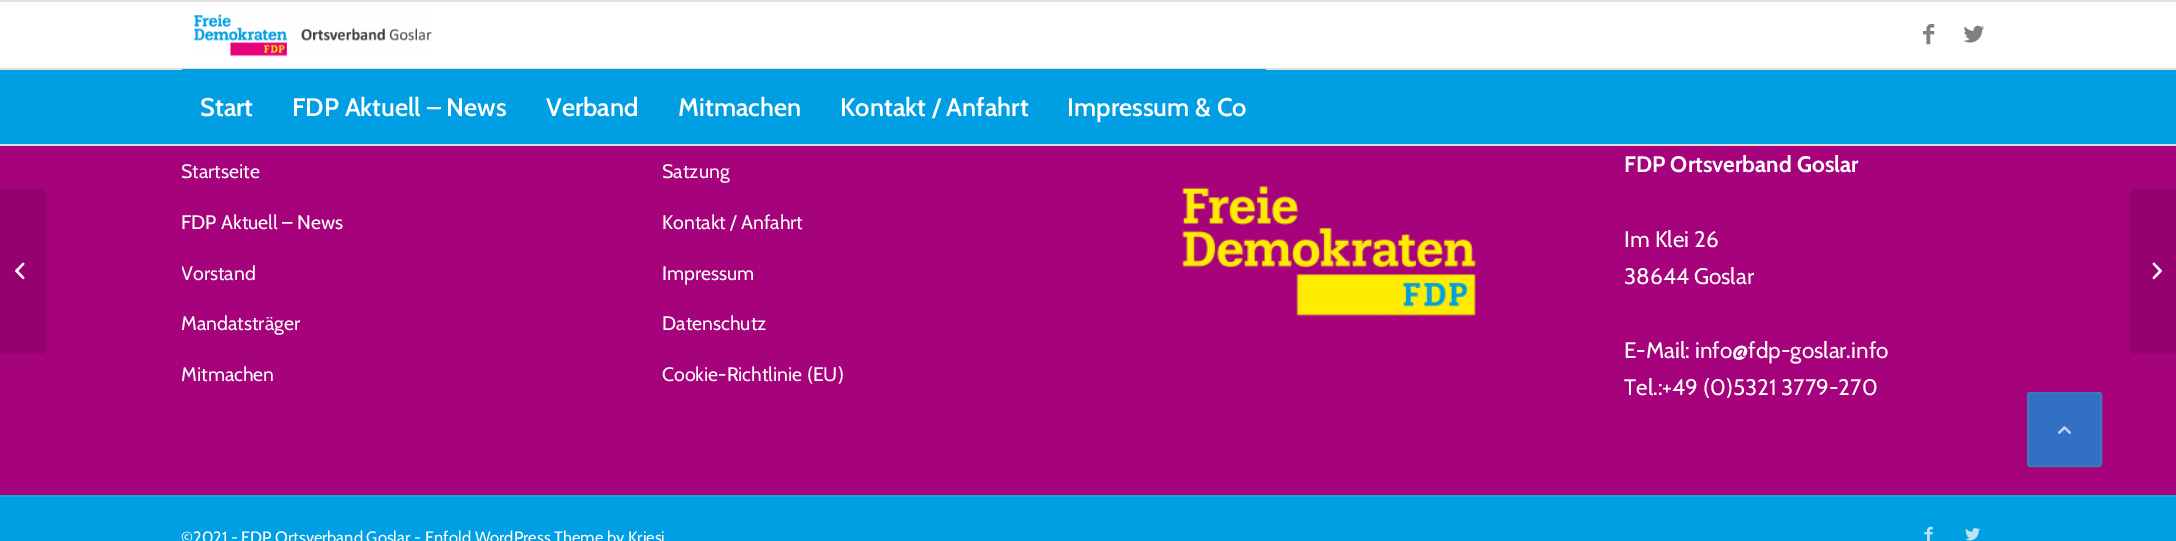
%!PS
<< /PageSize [2176 541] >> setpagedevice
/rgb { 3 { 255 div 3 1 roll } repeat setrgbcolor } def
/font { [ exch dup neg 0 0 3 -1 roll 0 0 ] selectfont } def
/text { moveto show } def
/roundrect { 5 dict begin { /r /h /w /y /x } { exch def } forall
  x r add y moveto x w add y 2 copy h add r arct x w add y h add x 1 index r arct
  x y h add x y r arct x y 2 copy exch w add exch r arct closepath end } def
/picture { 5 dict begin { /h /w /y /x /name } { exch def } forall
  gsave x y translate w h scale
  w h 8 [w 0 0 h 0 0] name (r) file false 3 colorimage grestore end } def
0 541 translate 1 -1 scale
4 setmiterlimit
255 255 255 rgb
0 0 2176 541 rectfill
225 225 225 rgb
0 0 2176 2 rectfill
0 144 2176 2 rectfill
(img_01.rgb) 194 14 238 43 picture
(img_02.rgb) 1923 24 12 21 picture
(img_03.rgb) 1963 25 21 18 picture
0 159 227 rgb
0 70 2176 74 rectfill
225 225 225 rgb
0 68 2176 2 rectfill
0 159 227 rgb
182 69 1084 1 rectfill
165 2 124 rgb
0 146 2176 349 rectfill
149 2 112 rgb
0 189 moveto 41 0 rlineto 3.5 0 6 2.5 6 6 rcurveto 0 153 rlineto 0 3.5 -2.5 6 -6 6 rcurveto -41 0 rlineto closepath fill
(img_04.rgb) 15 262 10 18 picture
(img_05.rgb) 1182 186 294 130 picture
0 159 227 rgb
0 497 2176 44 rectfill
17 171 214 rgb
0 495 2176 2 rectfill
(img_06.rgb) 1924 526 9 15 picture
(img_07.rgb) 1965 528 15 13 picture
149 2 112 rgb
2136 189 moveto 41 0 rlineto 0 165 rlineto -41 0 rlineto -3.5 0 -6 -2.5 -6 -6 rcurveto 0 -153 rlineto 0 -3.5 2.5 -6 6 -6 rcurveto closepath fill
(img_08.rgb) 2152 262 10 18 picture
50 112 196 rgb
2028 393 73 73 2 roundrect gsave fill grestore
61 120 187 rgb
2 setlinewidth
stroke
(img_09.rgb) 2058 426 13 8 picture
/Cabin-SemiBold 25.5 font
255 255 255 rgb
(Start) 200 116 text
(FDP Aktuell – News) 292 116 text
(Verband) 546 116 text
(Mitmachen) 678 116 text
(Kontakt / Anfahrt) 840 116 text
(Impressum & Co) 1067 116 text
gsave
182 147 372 254 rectclip
/Cabin-Regular 19.5 font
(Startseite) 181 178 text
grestore
/Cabin-Regular 19.5 font
(FDP Aktuell – News) 181 229 text
gsave
182 147 372 254 rectclip
(Vorstand) 181 280 text
grestore
(Mandatsträger) 181 330 text
(Mitmachen) 181 381 text
(Satzung) 662 178 text
(Kontakt / Anfahrt) 662 229 text
(Impressum) 662 280 text
(Datenschutz) 662 330 text
(Cookie-Richtlinie \(EU\)) 662 381 text
/Cabin-Bold 22.5 font
(FDP Ortsverband Goslar) 1624 172 text
/Cabin-Regular 22.5 font
(Im Klei 26) 1624 247 text
(38644 Goslar) 1624 284 text
(E-Mail: info@fdp-goslar.info) 1624 358 text
(Tel.:+49 \(0\)5321 3779-270) 1624 395 text
/Cabin-Regular 16.5 font
(©2021 - FDP Ortsverband Goslar - Enfold WordPress Theme by Kriesi) 181 543 text
showpage
